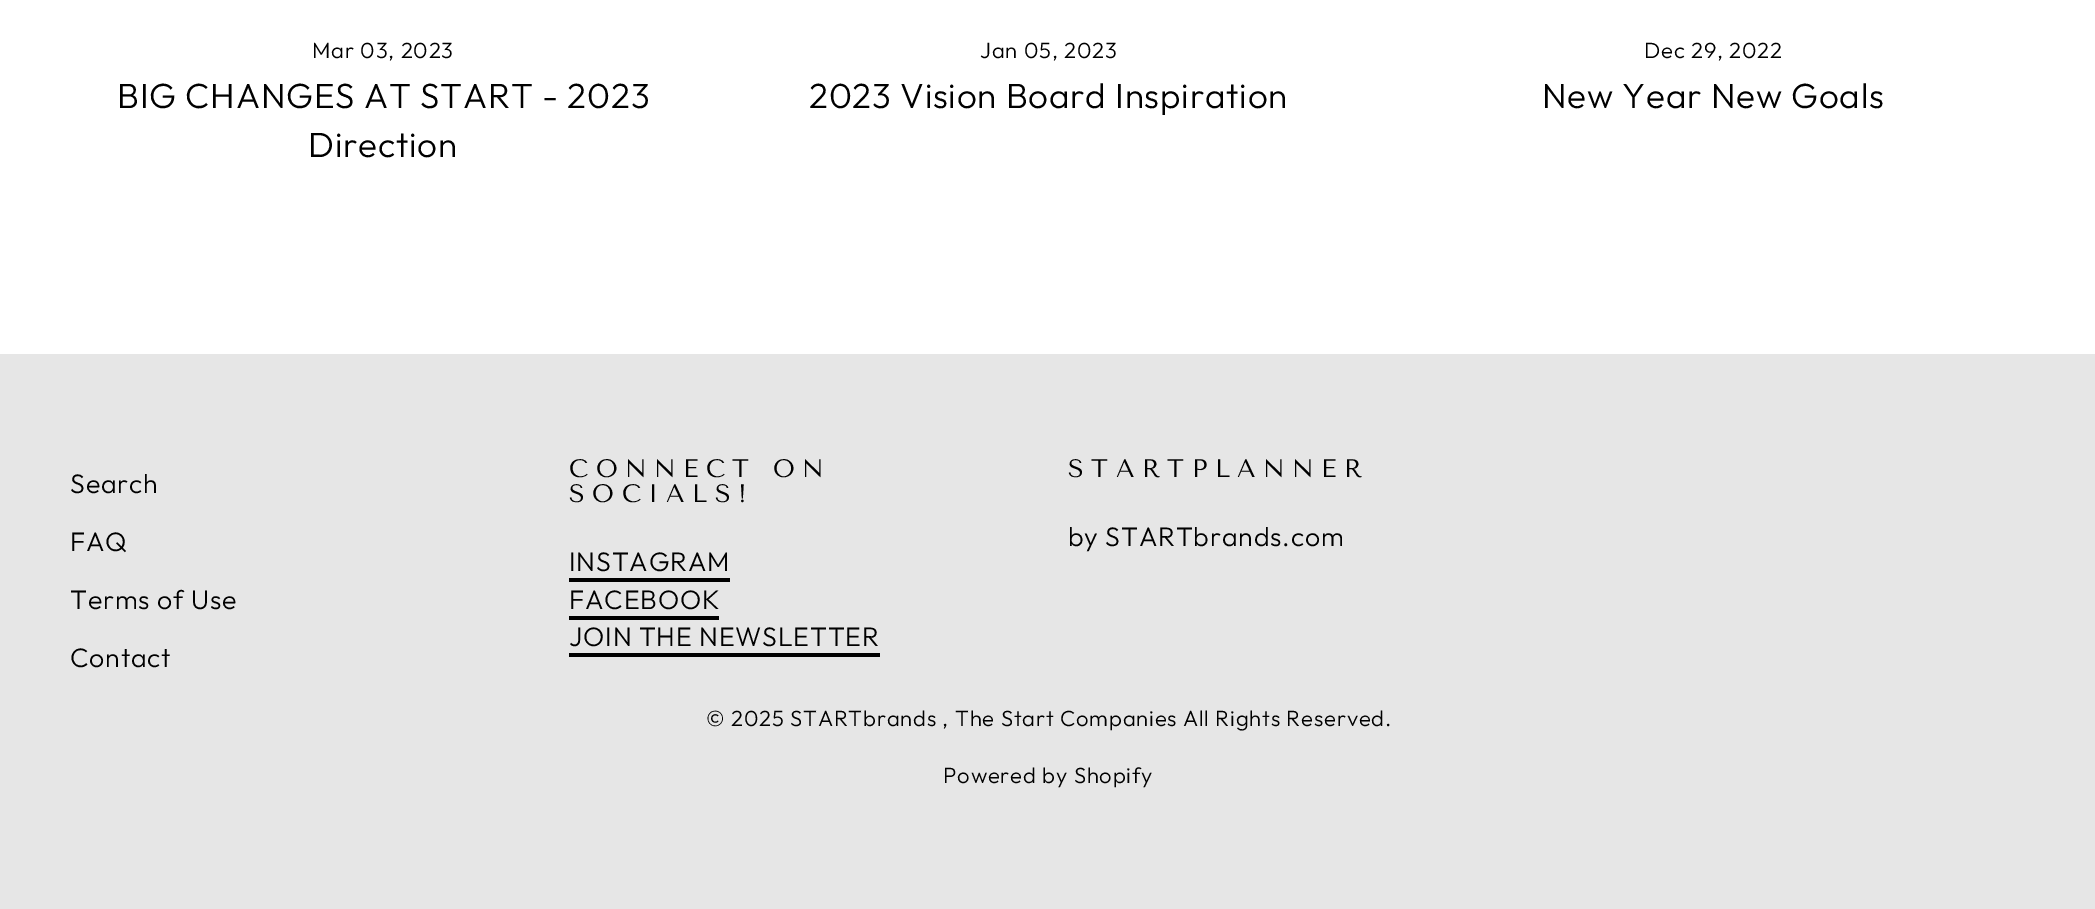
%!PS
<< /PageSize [2095 909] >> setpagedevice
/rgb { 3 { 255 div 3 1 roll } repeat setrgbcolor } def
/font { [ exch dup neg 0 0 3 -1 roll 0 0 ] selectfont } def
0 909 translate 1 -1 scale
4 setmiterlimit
255 255 255 rgb
0 0 2095 909 rectfill
230 230 230 rgb
0 354 2095 555 rectfill
0 0 0 rgb
569 578 161 4 rectfill
569 616 150 4 rectfill
569 653 311 4 rectfill
/Outfit-Light 22.05 font
312 58 moveto 0.8 0 (Mar 03, 2023) ashow
/Outfit-Light 35 font
117 108 moveto 0.8 0 (BIG CHANGES AT START - 2023) ashow
308 157 moveto 0.8 0 (Direction) ashow
/Outfit-Light 22.05 font
980 58 moveto 0.8 0 (Jan 05, 2023) ashow
/Outfit-Light 35 font
809 108 moveto 0.8 0 (2023 Vision Board Inspiration) ashow
/Outfit-Light 22.05 font
1644 58 moveto 0.8 0 (Dec 29, 2022) ashow
/Outfit-Light 35 font
1542 108 moveto 0.8 0 (New Year New Goals) ashow
/Outfit-Light 26.75 font
70 493 moveto 0.8 0 (Search) ashow
70 551 moveto 0.8 0 (FAQ) ashow
70 609 moveto 0.8 0 (Terms of Use) ashow
70 667 moveto 0.8 0 (Contact) ashow
/TenorSans-Regular 25.25 font
569 477 moveto 7.5 0 (CONNECT ON) ashow
569 502 moveto 7.5 0 (SOCIALS!) ashow
/Outfit-Light 26.75 font
569 571 moveto 0.8 0 (INSTAGRAM) ashow
569 609 moveto 0.8 0 (FACEBOOK) ashow
569 646 moveto 0.8 0 (JOIN THE NEWSLETTER) ashow
/TenorSans-Regular 25.25 font
1068 477 moveto 7.5 0 (STARTPLANNER) ashow
/Outfit-Light 26.75 font
1068 546 moveto 0.8 0 (by STARTbrands.com) ashow
/Outfit-Light 22.05 font
706 726 moveto 0.8 0 (© 2025 STARTbrands , The Start Companies All Rights Reserved.) ashow
943 783 moveto 0.8 0 (Powered by Shopify) ashow
showpage
